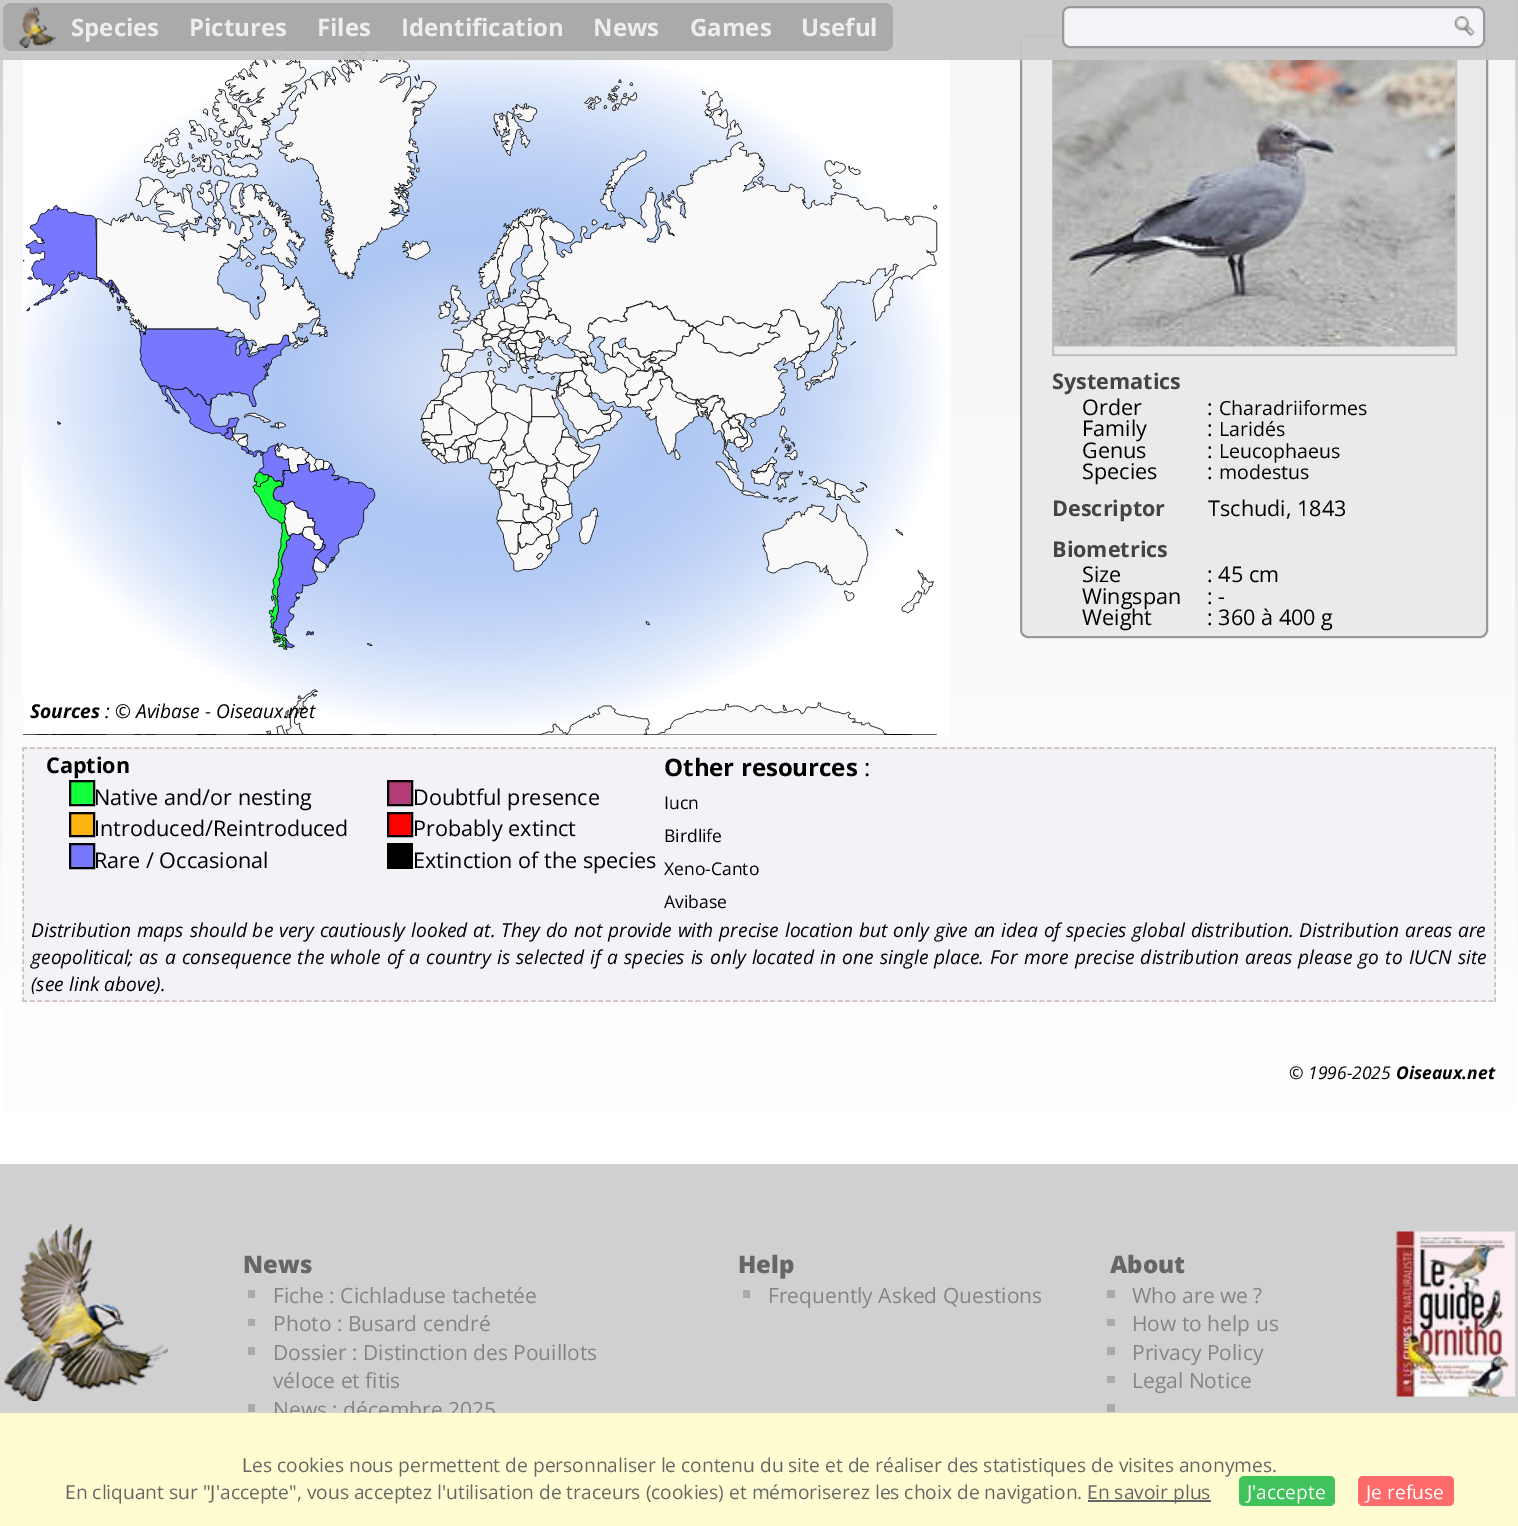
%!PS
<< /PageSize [1518 1526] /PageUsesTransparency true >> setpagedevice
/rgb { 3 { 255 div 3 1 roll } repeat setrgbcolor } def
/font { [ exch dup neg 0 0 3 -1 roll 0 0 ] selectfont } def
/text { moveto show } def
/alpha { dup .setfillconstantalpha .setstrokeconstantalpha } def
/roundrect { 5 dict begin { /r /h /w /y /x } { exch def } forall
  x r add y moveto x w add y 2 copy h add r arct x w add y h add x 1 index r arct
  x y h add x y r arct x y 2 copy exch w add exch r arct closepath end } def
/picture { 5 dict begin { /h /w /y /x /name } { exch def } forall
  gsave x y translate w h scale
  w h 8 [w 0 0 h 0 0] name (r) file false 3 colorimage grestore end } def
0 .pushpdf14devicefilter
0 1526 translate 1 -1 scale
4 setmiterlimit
255 255 255 rgb
0 0 1518 1526 rectfill
gsave 0 0 moveto 1518 0 rlineto 0 1002 rlineto -1518 0 rlineto closepath clip newpath
<< /ShadingType 2 /ColorSpace /DeviceRGB /Coords [759 -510 759 1244] /Extend [true true] /Function << /FunctionType 3 /Domain [0 1] /Functions [<< /FunctionType 2 /Domain [0 1] /C0 [0.733 0.733 0.733] /C1 [0.733 0.733 0.733] /N 1 >> << /FunctionType 2 /Domain [0 1] /C0 [0.733 0.733 0.733] /C1 [0.867 0.867 0.867] /N 1 >> << /FunctionType 2 /Domain [0 1] /C0 [0.867 0.867 0.867] /C1 [1 1 1] /N 1 >> << /FunctionType 2 /Domain [0 1] /C0 [1 1 1] /C1 [1 1 1] /N 1 >>] /Bounds [0.21 0.38 0.9] /Encode [0 1 0 1 0 1 0 1] >> >> shfill grestore
gsave 3 -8 1512 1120 8 roundrect clip newpath
<< /ShadingType 2 /ColorSpace /DeviceRGB /Coords [759 -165 759 1112] /Extend [true true] /Function << /FunctionType 2 /Domain [0 1] /C0 [0.961 0.961 0.961] /C1 [0.996 0.996 0.996] /N 1 >> >> shfill grestore
233 235 235 rgb
1021 36 466 601 7 roundrect gsave fill grestore
153 153 153 rgb
2 setlinewidth
stroke
194 194 194 rgb
1053 60 403 295 rectstroke
(img_04.rgb) 23 35 927 700 picture
0.95 alpha
198 198 198 rgb
0 0 1518 60 rectfill
1 alpha
170 170 170 rgb
3 3 890 48 8 roundrect fill
(img_01.rgb) 19 6 37 42 picture
243 243 248 rgb
1063 7 421 40 7 roundrect gsave fill grestore
153 153 153 rgb
stroke
(img_02.rgb) 1454 16 21 21 picture
(img_03.rgb) 1053 60 402 287 picture
243 242 247 rgb
23 747 1473 255 rectfill
206 190 184 rgb
1.5 setlinewidth
[4.5 2.98] 0 setdash
22.5 748 moveto 1473 0 rlineto stroke
[4.5 3.09] 0 setdash
1495 747 moveto 0 255 rlineto stroke
[4.5 2.98] 0 setdash
22.5 1001 moveto 1473 0 rlineto stroke
[4.5 3.09] 0 setdash
23 747 moveto 0 255 rlineto stroke
20 255 60 rgb
70 781 moveto 24 0 rlineto 0 24 rlineto -24 0 rlineto closepath gsave fill grestore
0 0 0 rgb
2 setlinewidth
[] 0 setdash
stroke
255 180 20 rgb
70 813 moveto 24 0 rlineto 0 23 rlineto -24 0 rlineto closepath gsave fill grestore
0 0 0 rgb
stroke
120 120 255 rgb
70 844 moveto 24 0 rlineto 0 24 rlineto -24 0 rlineto closepath gsave fill grestore
0 0 0 rgb
stroke
180 60 120 rgb
388 781 moveto 24 0 rlineto 0 24 rlineto -24 0 rlineto closepath gsave fill grestore
0 0 0 rgb
stroke
255 0 0 rgb
388 813 moveto 24 0 rlineto 0 23 rlineto -24 0 rlineto closepath gsave fill grestore
0 0 0 rgb
stroke
387 843 26 26 rectfill
208 208 208 rgb
0 1164 1518 249 rectfill
(img_05.rgb) 4 1224 164 177 picture
170 170 170 rgb
248 1290 7 8 rectfill
248 1319 7 7 rectfill
248 1347 7 8 rectfill
248 1404 7 8 rectfill
743 1290 7 8 rectfill
1107 1290 8 8 rectfill
1107 1319 8 7 rectfill
1107 1347 8 8 rectfill
1107 1376 8 7 rectfill
1107 1404 8 8 rectfill
(img_06.rgb) 1396 1231 119 166 picture
/OpenSans-Bold 24 font
238 238 238 rgb
(Species) 71 36 text
(Pictures) 189 36 text
(Files) 317 36 text
(Identification) 401 36 text
(News) 593 36 text
(Games) 690 36 text
(Useful) 801 36 text
/OpenSans-Bold 21.6 font
68 68 68 rgb
(Systematics) 1052 389 text
/OpenSans-Regular 21.6 font
0 0 0 rgb
(Order) 1082 415 text
(:) 1207 415 text
/OpenSans-Regular 19.5 font
(Charadriiformes) 1219 415 text
/OpenSans-Regular 21.6 font
(Family) 1082 436 text
(:) 1207 436 text
/OpenSans-Regular 19.5 font
(Laridés) 1219 436 text
/OpenSans-Regular 21.6 font
(Genus) 1082 458 text
(:) 1207 458 text
/OpenSans-Regular 19.5 font
(Leucophaeus) 1219 458 text
/OpenSans-Regular 21.6 font
(Species) 1082 479 text
(:) 1207 479 text
/OpenSans-Regular 19.5 font
(modestus) 1219 479 text
/OpenSans-Bold 21.6 font
68 68 68 rgb
(Descriptor) 1052 516 text
/OpenSans-Regular 21.6 font
0 0 0 rgb
(Tschudi, 1843) 1208 516 text
/OpenSans-Bold 21.6 font
68 68 68 rgb
(Biometrics) 1052 557 text
/OpenSans-Regular 21.6 font
0 0 0 rgb
(Size) 1082 582 text
(: 45 cm) 1207 582 text
(Wingspan) 1082 604 text
(: -) 1207 604 text
(Weight) 1082 625 text
(: 360 à 400 g) 1207 625 text
/OpenSans-BoldItalic 19.2 font
(Sources) 30 718 text
/OpenSans-Italic 19.2 font
(: © Avibase - Oiseaux.net) 105 718 text
/OpenSans-Bold 21.6 font
(Caption) 46 773 text
/OpenSans-Regular 21.6 font
(Native and/or nesting) 94 805 text
(Introduced/Reintroduced) 94 836 text
(Rare / Occasional) 94 868 text
(Doubtful presence) 413 805 text
(Probably extinct) 413 836 text
(Extinction of the species) 413 868 text
/OpenSans-Bold 24 font
(Other resources) 664 776 text
/OpenSans-Regular 24 font
(:) 864 776 text
/OpenSans-Regular 17.5 font
(Iucn) 664 809 text
(Birdlife) 664 842 text
(Xeno-Canto) 664 875 text
(Avibase) 664 908 text
/OpenSans-Italic 19.2 font
31 937 moveto 0.85 0 32 (Distribution maps should be very cautiously looked at. They do not provide with precise location but only give an idea of species global distribution. Distribution areas are) widthshow
31 964 moveto 1.15 0 32 (geopolitical; as a consequence the whole of a country is selected if a species is only located in one single place. For more precise distribution areas please go to IUCN site) widthshow
(\(see link above\).) 31 991 text
/OpenSans-Italic 17.5 font
(© 1996-2025) 1289 1079 text
/OpenSans-BoldItalic 17.5 font
(Oiseaux.net) 1396 1079 text
/OpenSans-ExtraBold 24 font
102 102 102 rgb
(News) 243 1273 text
/OpenSans-Regular 21 font
132 132 132 rgb
(Fiche : Cichladuse tachetée) 273 1303 text
(Photo : Busard cendré) 273 1331 text
(Dossier : Distinction des Pouillots) 273 1360 text
(véloce et fitis) 273 1388 text
(News : décembre 2025) 273 1417 text
/OpenSans-ExtraBold 24 font
102 102 102 rgb
(Help) 738 1273 text
/OpenSans-Regular 21 font
132 132 132 rgb
(Frequently Asked Questions) 768 1303 text
/OpenSans-ExtraBold 24 font
102 102 102 rgb
(About) 1110 1273 text
/OpenSans-Regular 21 font
132 132 132 rgb
(Who are we ?) 1132 1303 text
(How to help us) 1132 1331 text
(Privacy Policy) 1132 1360 text
(Legal Notice) 1132 1388 text
255 252 209 rgb
0 1413 1518 113 rectfill
/OpenSans-Regular 19.2 font
102 102 102 rgb
(Les cookies nous permettent de personnaliser le contenu du site et de réaliser des statistiques de visites anonymes.) 242 1472 text
(En cliquant sur "J'accepte", vous acceptez l'utilisation de traceurs \(cookies\) et mémoriserez les choix de navigation.) 65 1499 text
1088 1500 123 2 rectfill
(En savoir plus) 1087 1499 text
63 195 90 rgb
1239 1476 96 30 5 roundrect fill
255 255 255 rgb
(J'accepte) 1247 1499 text
255 107 107 rgb
1358 1476 96 30 5 roundrect fill
255 255 255 rgb
(Je refuse) 1366 1499 text
.poppdf14devicefilter showpage
